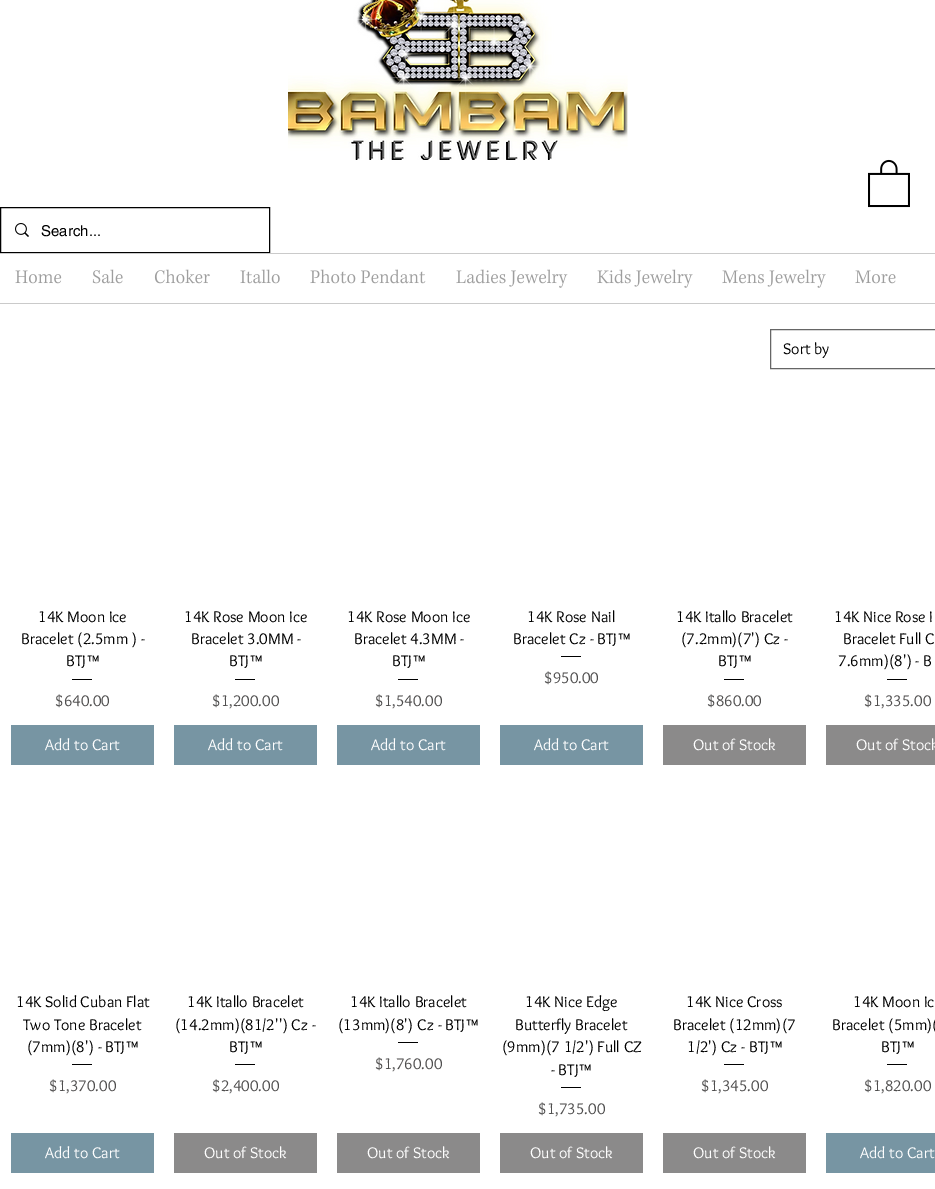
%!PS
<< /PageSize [935 1189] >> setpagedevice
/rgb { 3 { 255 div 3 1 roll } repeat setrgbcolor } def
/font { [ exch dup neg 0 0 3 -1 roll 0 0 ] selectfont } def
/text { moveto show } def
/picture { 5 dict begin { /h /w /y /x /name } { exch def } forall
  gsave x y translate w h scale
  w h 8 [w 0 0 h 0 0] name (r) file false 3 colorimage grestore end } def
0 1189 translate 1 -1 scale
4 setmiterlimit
255 255 255 rgb
0 0 935 1189 rectfill
(img_01.rgb) 288 0 340 160 picture
(img_02.rgb) 868 159 42 49 picture
0 0 0 rgb
0.5 207.5 269 45 rectstroke
(img_03.rgb) 15 223 14 14 picture
202 202 202 rgb
0 253 935 1 rectfill
0 303 935 1 rectfill
(img_04.rgb) 15 270 47 14 picture
(img_05.rgb) 92 269 31 15 picture
(img_06.rgb) 154 269 56 15 picture
(img_07.rgb) 240 269 40 15 picture
(img_08.rgb) 310 269 116 15 picture
(img_09.rgb) 456 269 112 19 picture
(img_10.rgb) 597 269 96 19 picture
(img_11.rgb) 722 269 104 19 picture
(img_12.rgb) 855 270 41 14 picture
102 102 102 rgb
770.5 329.5 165 39 rectstroke
0 0 0 rgb
72 679 20 1 rectfill
119 149 163 rgb
11 725 143 40 rectfill
0 0 0 rgb
235 679 20 1 rectfill
119 149 163 rgb
174 725 143 40 rectfill
0 0 0 rgb
398 679 20 1 rectfill
119 149 163 rgb
337 725 143 40 rectfill
0 0 0 rgb
561 656 20 1 rectfill
119 149 163 rgb
500 725 143 40 rectfill
0 0 0 rgb
724 679 20 1 rectfill
139 138 138 rgb
663 725 143 40 rectfill
0 0 0 rgb
887 679 20 1 rectfill
139 138 138 rgb
826 725 109 40 rectfill
0 0 0 rgb
72 1064 20 1 rectfill
119 149 163 rgb
11 1133 143 40 rectfill
0 0 0 rgb
235 1064 20 1 rectfill
139 138 138 rgb
174 1133 143 40 rectfill
0 0 0 rgb
398 1042 20 1 rectfill
139 138 138 rgb
337 1133 143 40 rectfill
0 0 0 rgb
561 1087 20 1 rectfill
139 138 138 rgb
500 1133 143 40 rectfill
0 0 0 rgb
724 1064 20 1 rectfill
139 138 138 rgb
663 1133 143 40 rectfill
0 0 0 rgb
887 1064 20 1 rectfill
119 149 163 rgb
826 1133 109 40 rectfill
/helvetica-Regular 15 font
0 0 0 rgb
(Search...) 41 236 text
/Overlock-Regular 16 font
(Sort by) 783 354 text
(14K Moon Ice) 38 622 text
(Bracelet \(2.5mm \) -) 21 644 text
(BTJ™) 66 666 text
80 79 79 rgb
($640.00) 55 706 text
255 255 255 rgb
(Add to Cart) 45 750 text
0 0 0 rgb
(14K Rose Moon Ice) 184 622 text
(Bracelet 3.0MM -) 191 644 text
(BTJ™) 229 666 text
80 79 79 rgb
($1,200.00) 212 706 text
255 255 255 rgb
(Add to Cart) 208 750 text
0 0 0 rgb
(14K Rose Moon Ice) 347 622 text
(Bracelet 4.3MM -) 354 644 text
(BTJ™) 392 666 text
80 79 79 rgb
($1,540.00) 375 706 text
255 255 255 rgb
(Add to Cart) 371 750 text
0 0 0 rgb
(14K Rose Nail) 527 622 text
(Bracelet Cz - BTJ™) 513 644 text
80 79 79 rgb
($950.00) 544 683 text
255 255 255 rgb
(Add to Cart) 534 750 text
0 0 0 rgb
(14K Itallo Bracelet) 676 622 text
(\(7.2mm\)\(7'\) Cz -) 681 644 text
(BTJ™) 718 666 text
80 79 79 rgb
($860.00) 707 706 text
255 255 255 rgb
(Out of Stock) 693 750 text
0 0 0 rgb
(14K Nice Rose I) 834 622 text
(Bracelet Full C) 843 644 text
(7.6mm\)\(8'\) - B) 838 666 text
80 79 79 rgb
($1,335.00) 864 706 text
255 255 255 rgb
(Out of Stock) 856 750 text
0 0 0 rgb
(14K Solid Cuban Flat) 16 1007 text
(Two Tone Bracelet) 23 1030 text
(\(7mm\)\(8'\) - BTJ™) 27 1052 text
80 79 79 rgb
($1,370.00) 49 1091 text
255 255 255 rgb
(Add to Cart) 45 1158 text
0 0 0 rgb
(14K Itallo Bracelet) 187 1007 text
(\(14.2mm\)\(81/2''\) Cz -) 175 1030 text
(BTJ™) 229 1052 text
80 79 79 rgb
($2,400.00) 212 1091 text
255 255 255 rgb
(Out of Stock) 204 1158 text
0 0 0 rgb
(14K Itallo Bracelet) 350 1007 text
(\(13mm\)\(8'\) Cz - BTJ™) 338 1030 text
80 79 79 rgb
($1,760.00) 375 1069 text
255 255 255 rgb
(Out of Stock) 367 1158 text
0 0 0 rgb
(14K Nice Edge) 525 1007 text
(Butterfly Bracelet) 515 1030 text
(\(9mm\)\(7 1/2'\) Full CZ) 502 1052 text
(- BTJ™) 551 1075 text
80 79 79 rgb
($1,735.00) 538 1114 text
255 255 255 rgb
(Out of Stock) 530 1158 text
0 0 0 rgb
(14K Nice Cross) 686 1007 text
(Bracelet \(12mm\)\(7) 673 1030 text
(1/2'\) Cz - BTJ™) 687 1052 text
80 79 79 rgb
($1,345.00) 701 1091 text
255 255 255 rgb
(Out of Stock) 693 1158 text
0 0 0 rgb
(14K Moon Ic) 853 1007 text
(Bracelet \(5mm\)\() 832 1030 text
(BTJ™) 881 1052 text
80 79 79 rgb
($1,820.00) 864 1091 text
255 255 255 rgb
(Add to Cart) 860 1158 text
showpage
